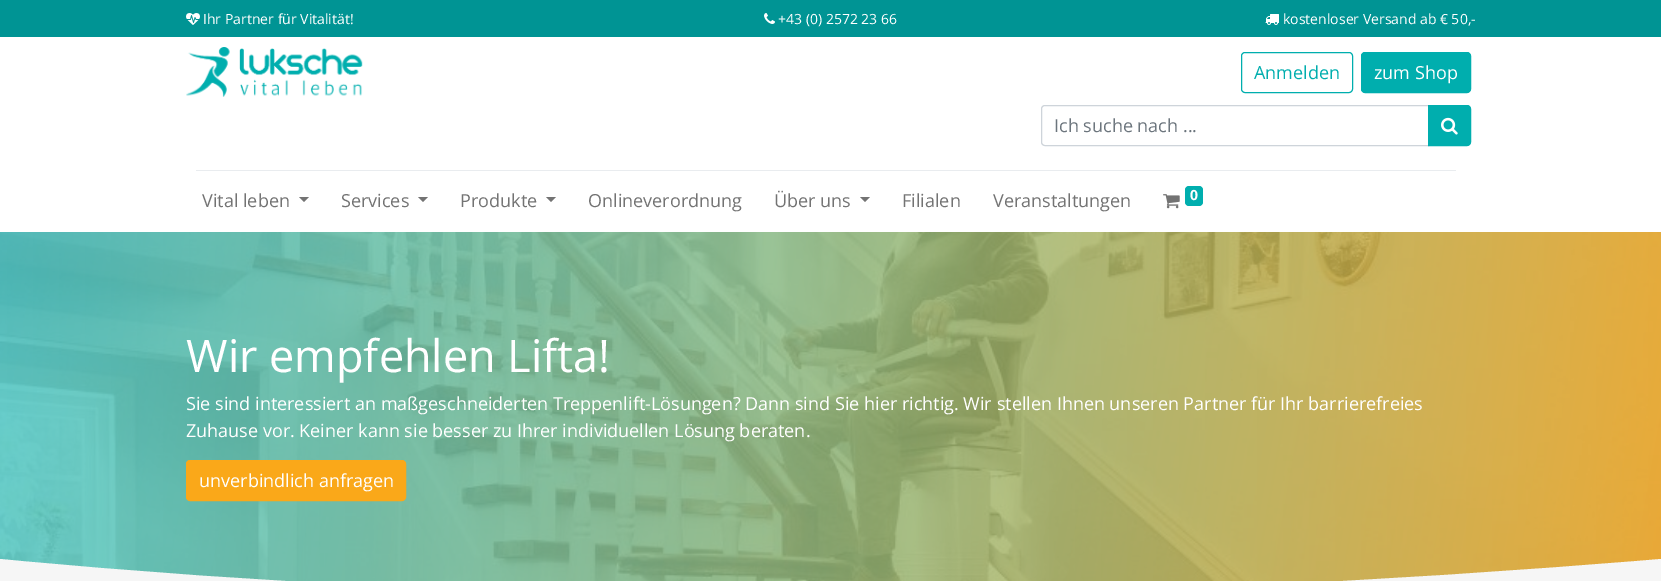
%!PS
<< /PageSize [1661 581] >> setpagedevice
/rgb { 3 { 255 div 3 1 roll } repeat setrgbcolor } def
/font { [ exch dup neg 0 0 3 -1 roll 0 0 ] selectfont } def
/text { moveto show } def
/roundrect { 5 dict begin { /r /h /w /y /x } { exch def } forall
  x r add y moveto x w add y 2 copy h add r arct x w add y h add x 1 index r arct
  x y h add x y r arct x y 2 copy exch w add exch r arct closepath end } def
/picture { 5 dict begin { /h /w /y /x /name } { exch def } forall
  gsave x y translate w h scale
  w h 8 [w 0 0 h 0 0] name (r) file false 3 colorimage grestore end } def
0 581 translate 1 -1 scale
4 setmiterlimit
255 255 255 rgb
0 0 1661 581 rectfill
0 148 148 rgb
0 0 1661 37 rectfill
(img_01.rgb) 186 13 14 12 picture
(img_02.rgb) 764 13 11 11 picture
(img_03.rgb) 1265 14 14 11 picture
(img_04.rgb) 186 47 177 50 picture
0 174 174 rgb
1241.5 52.5 111 40 3.5 roundrect stroke
1361.5 52.5 109 40 3.5 roundrect gsave fill grestore
stroke
206 212 218 rgb
1045 105.5 moveto 383.5 0 rlineto 0 40 rlineto -383.5 0 rlineto -2 0 -3.5 -1.5 -3.5 -3.5 rcurveto 0 -33 rlineto 0 -2 1.5 -3.5 3.5 -3.5 rcurveto closepath stroke
0 174 174 rgb
1428.5 105.5 moveto 38.5 0 rlineto 2 0 3.5 1.5 3.5 3.5 rcurveto 0 33 rlineto 0 2 -1.5 3.5 -3.5 3.5 rcurveto -38.5 0 rlineto closepath gsave fill grestore
stroke
(img_05.rgb) 1441 117 17 18 picture
233 236 239 rgb
196 170 1260 1 rectfill
115 115 115 rgb
299 197 moveto 10 0 rlineto -5 5 rlineto closepath fill
418 197 moveto 10 0 rlineto -5 5 rlineto closepath fill
546 197 moveto 10 0 rlineto -5 5 rlineto closepath fill
860 197 moveto 10 0 rlineto -5 5 rlineto closepath fill
(img_06.rgb) 1163 194 17 15 picture
0 174 174 rgb
1185 186 18 20 4 roundrect fill
(img_07.rgb) 0 232 1661 349 picture
250 168 25 rgb
186.5 460.5 219 40 3.5 roundrect gsave fill grestore
stroke
246 246 246 rgb
0 559 moveto 0 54 rlineto 1661 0 rlineto 0 -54 rlineto -575 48 -1129 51 -1661 0 rcurveto closepath fill
/OpenSans-Regular 14 font
255 255 255 rgb
(Ihr Partner für Vitalität!) 203 24 text
(+43 \(0\) 2572 23 66) 778 24 text
(kostenloser Versand ab € 50,-) 1283 24 text
/OpenSans-Regular 18 font
0 174 174 rgb
(Anmelden) 1254 79 text
255 255 255 rgb
(zum Shop) 1374 79 text
108 117 125 rgb
(Ich suche nach ...) 1054 132 text
115 115 115 rgb
(Vital leben) 202 207 text
(Services) 341 207 text
(Produkte) 460 207 text
(Onlineverordnung) 588 207 text
(Über uns) 774 207 text
(Filialen) 902 207 text
(Veranstaltungen) 993 207 text
/OpenSans-Bold 14 font
255 255 255 rgb
(0) 1190 200 text
/OpenSans-Regular 45 font
(Wir empfehlen Lifta!) 186 372 text
/OpenSans-Regular 18 font
(Sie sind interessiert an maßgeschneiderten Treppenlift-Lösungen? Dann sind Sie hier richtig. Wir stellen Ihnen unseren Partner für Ihr barrierefreies) 186 410 text
(Zuhause vor. Keiner kann sie besser zu Ihrer individuellen Lösung beraten.) 186 437 text
(unverbindlich anfragen) 199 487 text
showpage
